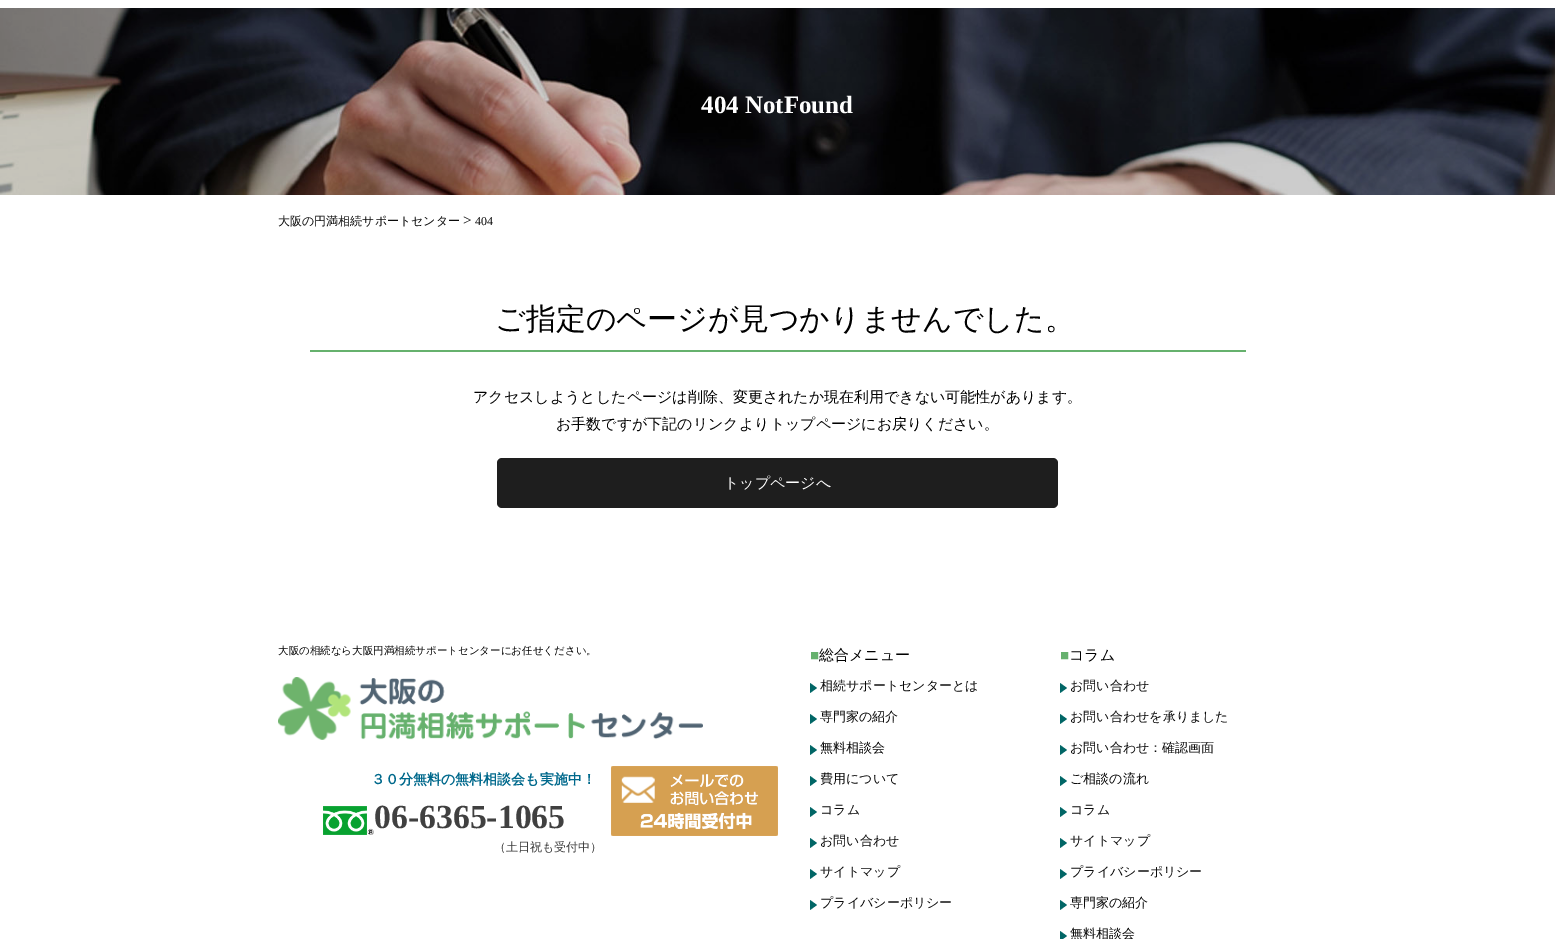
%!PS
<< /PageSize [1555 939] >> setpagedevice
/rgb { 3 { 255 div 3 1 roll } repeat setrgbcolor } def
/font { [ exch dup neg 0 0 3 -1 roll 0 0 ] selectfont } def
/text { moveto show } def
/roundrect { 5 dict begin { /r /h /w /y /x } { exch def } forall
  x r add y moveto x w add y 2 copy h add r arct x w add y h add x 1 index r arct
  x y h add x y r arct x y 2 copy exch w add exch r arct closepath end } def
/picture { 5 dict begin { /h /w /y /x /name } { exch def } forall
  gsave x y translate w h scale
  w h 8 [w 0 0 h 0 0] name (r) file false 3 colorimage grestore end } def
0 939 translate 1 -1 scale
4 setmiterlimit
255 255 255 rgb
0 0 1555 939 rectfill
(img_01.rgb) 0 8 1555 187 picture
102 177 109 rgb
310 350 936 2 rectfill
30 30 30 rgb
497 458 561 50 5 roundrect fill
(img_02.rgb) 278 677 425 63 picture
(img_03.rgb) 323 806 51 29 picture
(img_04.rgb) 611 766 167 70 picture
1 102 102 rgb
810 693 moveto 0 -10 rlineto 7 5 rlineto closepath fill
810 724 moveto 0 -10 rlineto 7 5 rlineto closepath fill
810 755 moveto 0 -10 rlineto 7 5 rlineto closepath fill
810 786 moveto 0 -10 rlineto 7 5 rlineto closepath fill
810 817 moveto 0 -10 rlineto 7 5 rlineto closepath fill
810 848 moveto 0 -10 rlineto 7 5 rlineto closepath fill
810 879 moveto 0 -10 rlineto 7 5 rlineto closepath fill
810 910 moveto 0 -10 rlineto 7 5 rlineto closepath fill
1060 693 moveto 0 -10 rlineto 7 5 rlineto closepath fill
1060 724 moveto 0 -10 rlineto 7 5 rlineto closepath fill
1060 755 moveto 0 -10 rlineto 7 5 rlineto closepath fill
1060 786 moveto 0 -10 rlineto 7 5 rlineto closepath fill
1060 817 moveto 0 -10 rlineto 7 5 rlineto closepath fill
1060 848 moveto 0 -10 rlineto 7 5 rlineto closepath fill
1060 879 moveto 0 -10 rlineto 7 5 rlineto closepath fill
1060 910 moveto 0 -10 rlineto 7 5 rlineto closepath fill
1060 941 moveto 0 -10 rlineto 7 5 rlineto closepath fill
/LiberationSerif-Bold 25 font
255 255 255 rgb
(404 NotFound) 701 113 text
/WenQuanYiZenHei-Medium 12 font
10 10 10 rgb
(大阪の円満相続サポートセンター) 278 225 text
/LiberationSerif-Regular 15 font
0 0 0 rgb
(>) 463 225 text
/LiberationSerif-Regular 12 font
(404) 475 225 text
/WenQuanYiZenHei-Medium 30 font
(ご指定のページが見つかりませんでした。) 495 329 text
/WenQuanYiZenHei-Medium 15 font
(アクセスしようとしたページは削除、変更されたか現在利用できない可能性があります。) 473 402 text
(お手数ですが下記のリンクよりトップページにお戻りください。) 556 429 text
255 255 255 rgb
(トップページへ) 724 488 text
/WenQuanYiZenHei-Medium 10.5 font
0 0 0 rgb
(大阪の相続なら大阪円満相続サポートセンターにお任せください。) 278 654 text
/WenQuanYiZenHei-Bold 14 font
0 105 140 rgb
(３０分無料の無料相談会も実施中！) 371 784 text
/LiberationSerif-Bold 33.75 font
64 64 64 rgb
(06-6365-1065) 374 828 text
/WenQuanYiZenHei-Medium 12 font
(（土日祝も受付中）) 494 851 text
/LiberationSerif-Regular 15 font
102 177 110 rgb
(■) 810 660 text
/WenQuanYiZenHei-Medium 15 font
0 0 0 rgb
(総合メニュー) 819 660 text
/WenQuanYiZenHei-Medium 13 font
10 10 10 rgb
(相続サポートセンターとは) 820 690 text
(専門家の紹介) 820 721 text
(無料相談会) 820 752 text
(費用について) 820 783 text
(コラム) 820 814 text
(お問い合わせ) 820 845 text
(サイトマップ) 820 876 text
(プライバシーポリシー) 820 907 text
/LiberationSerif-Regular 15 font
102 177 110 rgb
(■) 1060 660 text
/WenQuanYiZenHei-Medium 15 font
0 0 0 rgb
(コラム) 1069 660 text
/WenQuanYiZenHei-Medium 13 font
10 10 10 rgb
(お問い合わせ) 1070 690 text
(お問い合わせを承りました) 1070 721 text
(お問い合わせ：確認画面) 1070 752 text
(ご相談の流れ) 1070 783 text
(コラム) 1070 814 text
(サイトマップ) 1070 845 text
(プライバシーポリシー) 1070 876 text
(専門家の紹介) 1070 907 text
(無料相談会) 1070 938 text
showpage
